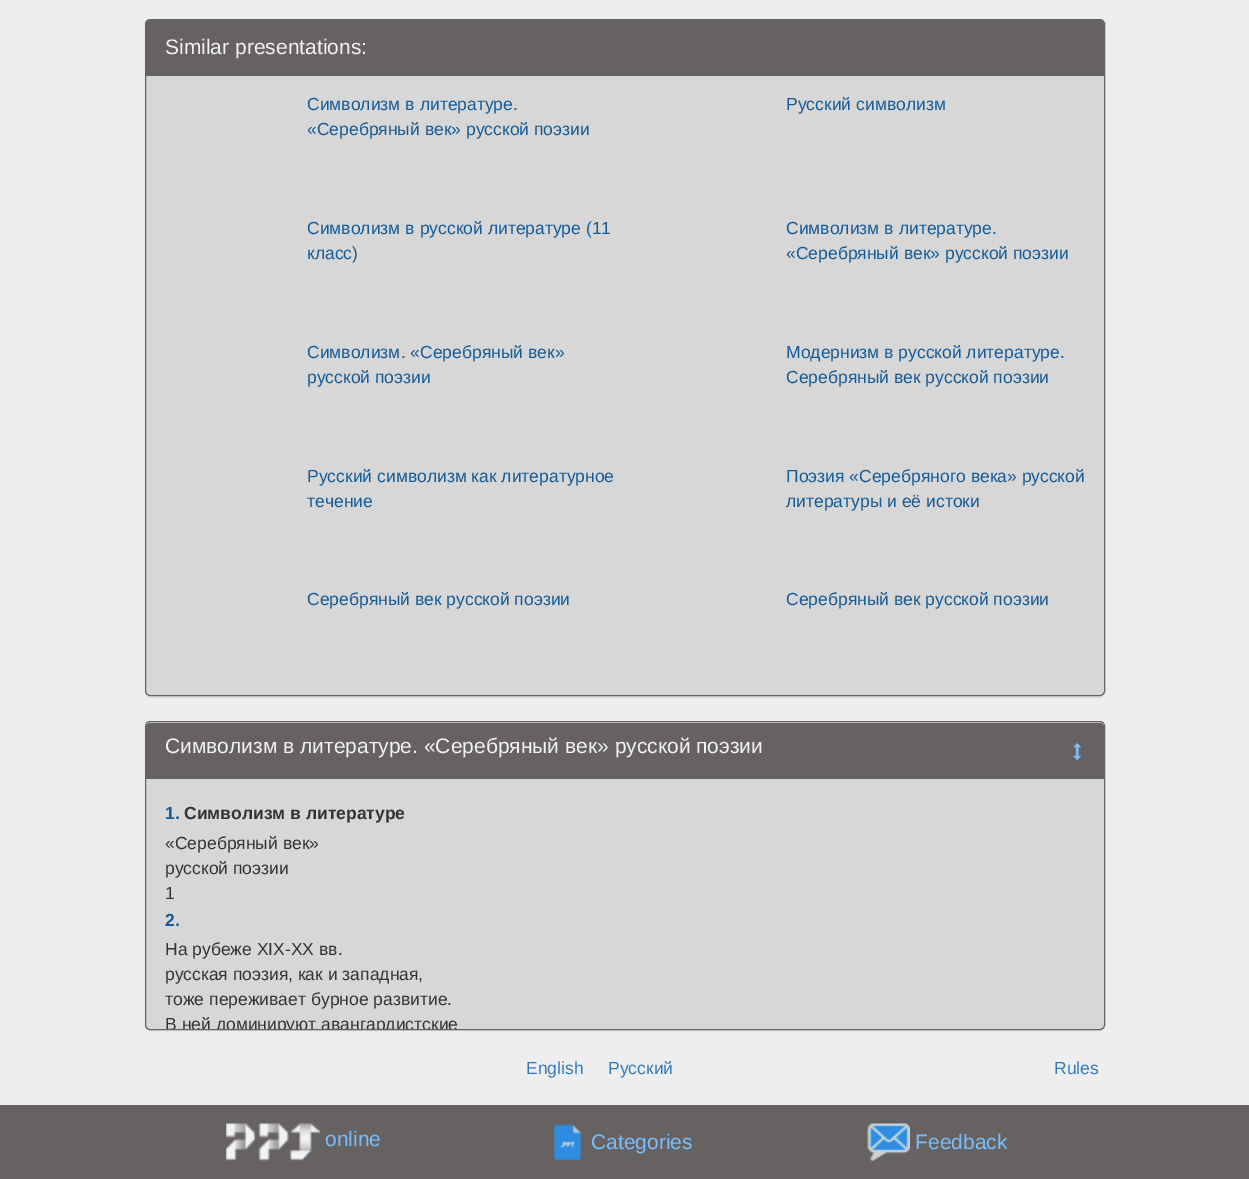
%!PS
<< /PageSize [1249 1179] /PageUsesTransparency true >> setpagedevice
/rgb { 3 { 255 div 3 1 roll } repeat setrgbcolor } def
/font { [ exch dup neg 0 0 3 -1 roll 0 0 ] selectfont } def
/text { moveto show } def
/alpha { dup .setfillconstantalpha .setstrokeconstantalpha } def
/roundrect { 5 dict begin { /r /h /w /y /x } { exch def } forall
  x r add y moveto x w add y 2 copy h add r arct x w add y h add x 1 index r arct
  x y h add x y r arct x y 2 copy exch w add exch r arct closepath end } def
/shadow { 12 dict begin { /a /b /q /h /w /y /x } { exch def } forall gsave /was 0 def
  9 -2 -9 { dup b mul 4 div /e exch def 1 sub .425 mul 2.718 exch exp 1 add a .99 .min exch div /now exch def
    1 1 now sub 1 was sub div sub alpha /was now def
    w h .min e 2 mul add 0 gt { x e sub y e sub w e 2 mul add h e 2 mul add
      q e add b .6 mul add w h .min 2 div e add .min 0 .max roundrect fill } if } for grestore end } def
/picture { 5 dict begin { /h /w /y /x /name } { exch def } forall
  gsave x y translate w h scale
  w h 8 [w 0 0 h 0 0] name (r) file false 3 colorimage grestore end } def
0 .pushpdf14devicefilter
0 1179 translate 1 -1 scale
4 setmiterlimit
238 238 238 rgb
0 0 1249 1179 rectfill
0 0 0 rgb
145 20 960 678 5 0.5 0.05 shadow
215 215 215 rgb
145.5 19.5 959 676 4.5 roundrect gsave fill grestore
103 98 98 rgb
stroke
150 20 moveto 950 0 rlineto 2 0 4 2 4 4 rcurveto 0 52 rlineto -958 0 rlineto 0 -52 rlineto 0 -2 2 -4 4 -4 rcurveto closepath fill
0 0 0 rgb
145 723 960 308 5 0.5 0.05 shadow
215 215 215 rgb
145.5 721.5 959 308 4.5 roundrect gsave fill grestore
103 98 98 rgb
stroke
150 723 moveto 950 0 rlineto 2 0 4 2 4 4 rcurveto 0 52 rlineto -958 0 rlineto 0 -52 rlineto 0 -2 2 -4 4 -4 rcurveto closepath fill
(img_01.rgb) 1073 743 8 17 picture
0 1105 1249 74 rectfill
(img_02.rgb) 226 1123 94 38 picture
(img_03.rgb) 553 1124 29 37 picture
(img_04.rgb) 867 1123 43 38 picture
/LiberationSans-Regular 21 font
242 242 242 rgb
(Similar presentations:) 165 54 text
/LiberationSans-Regular 17.5 font
19 90 151 rgb
(Символизм в литературе.) 307 110 text
(«Серебряный век» русской поэзии) 307 135 text
(Русский символизм) 786 110 text
(Символизм в русской литературе \(11) 307 234 text
(класс\)) 307 259 text
(Символизм в литературе.) 786 234 text
(«Серебряный век» русской поэзии) 786 259 text
(Символизм. «Серебряный век») 307 358 text
(русской поэзии) 307 383 text
(Модернизм в русской литературе.) 786 358 text
(Серебряный век русской поэзии) 786 383 text
(Русский символизм как литературное) 307 482 text
(течение) 307 507 text
(Поэзия «Серебряного века» русской) 786 482 text
(литературы и её истоки) 786 507 text
(Серебряный век русской поэзии) 307 605 text
(Серебряный век русской поэзии) 786 605 text
/LiberationSans-Regular 21 font
242 242 242 rgb
(Символизм в литературе. «Серебряный век» русской поэзии) 165 753 text
/LiberationSans-Bold 17.5 font
19 90 151 rgb
(1.) 165 819 text
51 51 51 rgb
(Символизм в литературе) 184 819 text
/LiberationSans-Regular 17.5 font
(«Серебряный век») 165 849 text
(русской поэзии) 165 874 text
(1) 165 899 text
/LiberationSans-Bold 17.5 font
19 90 151 rgb
(2.) 165 926 text
/LiberationSans-Regular 17.5 font
51 51 51 rgb
(На рубеже ХIХ-ХХ вв.) 165 955 text
(русская поэзия, как и западная,) 165 980 text
(тоже переживает бурное развитие.) 165 1005 text
gsave
146 779 958 250 rectclip
(В ней доминируют авангардистские) 165 1030 text
grestore
51 122 183 rgb
(English) 526 1074 text
(Русский) 608 1074 text
(Rules) 1054 1074 text
/LiberationSans-Regular 21 font
119 191 252 rgb
(online) 325 1146 text
(Categories) 591 1149 text
(Feedback) 915 1149 text
.poppdf14devicefilter showpage
